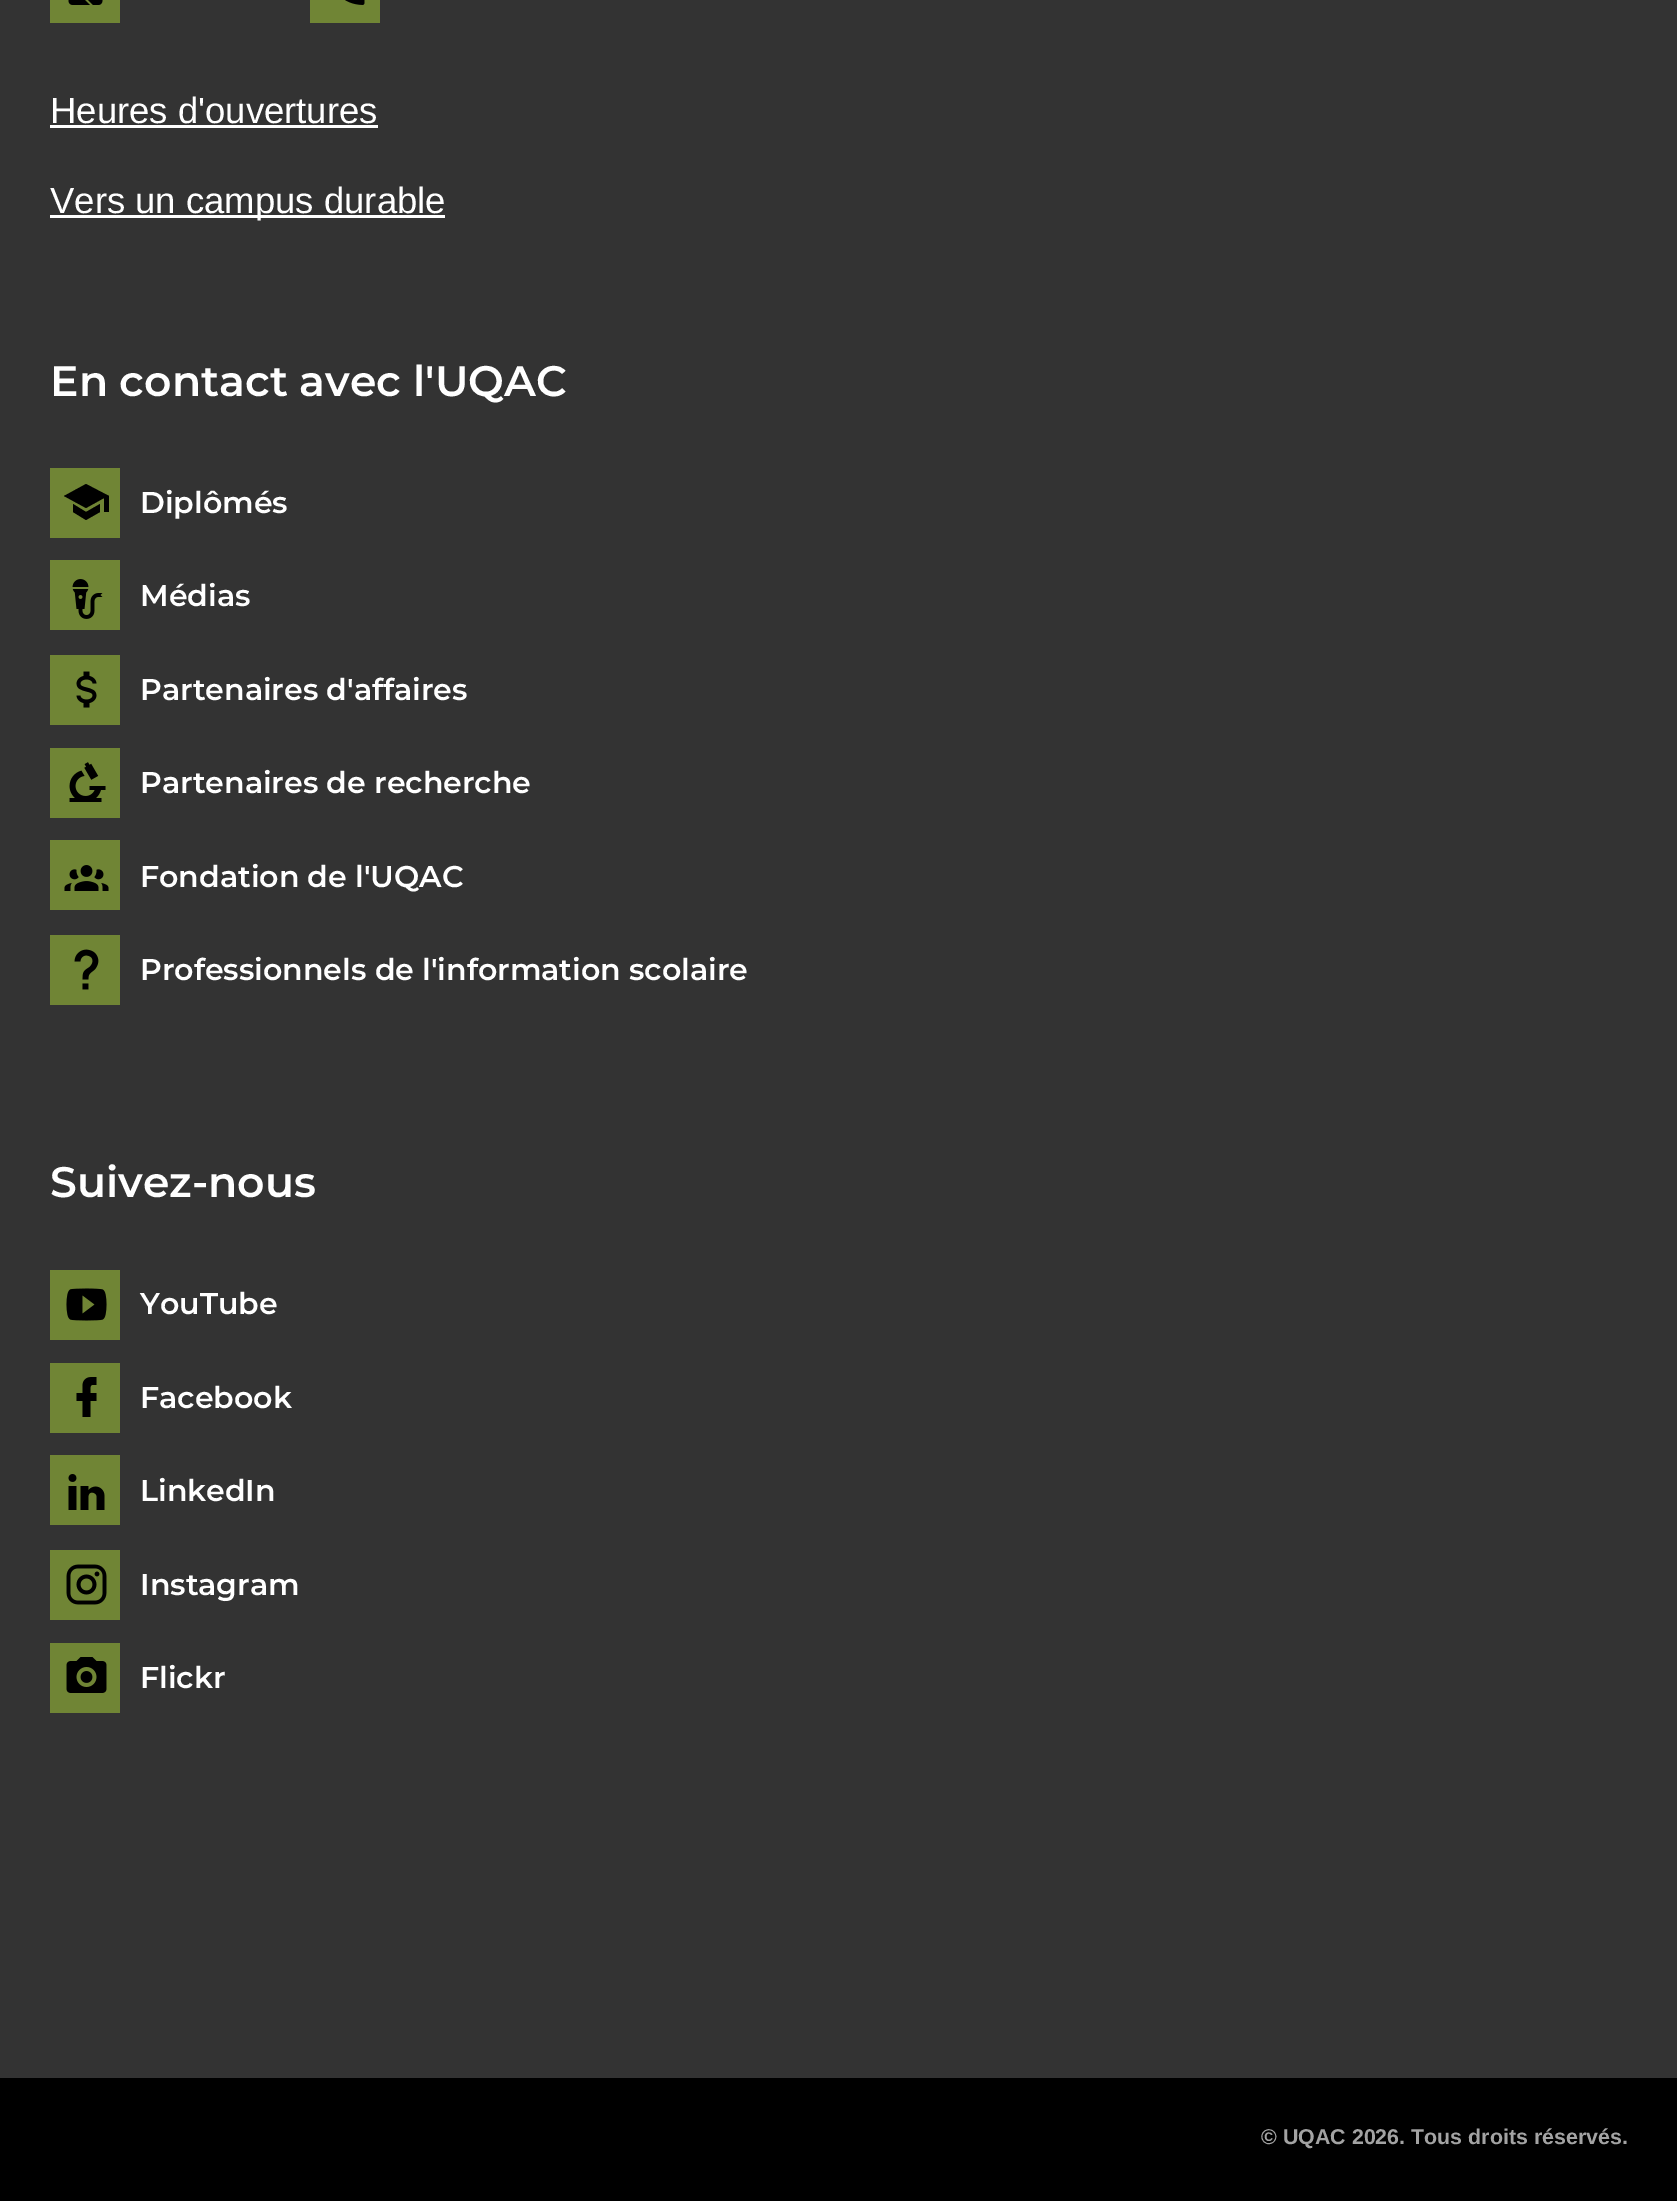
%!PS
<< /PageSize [1677 2201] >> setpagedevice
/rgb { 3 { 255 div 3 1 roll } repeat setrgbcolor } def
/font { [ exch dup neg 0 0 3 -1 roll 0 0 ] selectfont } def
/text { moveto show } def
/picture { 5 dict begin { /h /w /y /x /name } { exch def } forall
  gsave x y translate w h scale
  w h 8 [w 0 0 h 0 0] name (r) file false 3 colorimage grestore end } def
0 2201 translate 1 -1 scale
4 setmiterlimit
51 51 51 rgb
0 0 1677 2201 rectfill
112 133 53 rgb
50 0 70 23 rectfill
(img_01.rgb) 68 0 35 5 picture
310 0 70 23 rectfill
(img_02.rgb) 345 0 20 5 picture
255 255 255 rgb
50 125 328 3 rectfill
50 215 395 3 rectfill
112 133 53 rgb
50 468 70 70 rectfill
0 0 0 rgb
86 484 moveto -22 12 rlineto 22 12 rlineto 18 -10 rlineto 0 14 rlineto 5 0 rlineto 0 -16 rlineto closepath 73 504 moveto 0 8 rlineto 13 8 rlineto 14 -8 rlineto 0 -8 rlineto -14 8 rlineto closepath fill
112 133 53 rgb
50 560 70 70 rectfill
(img_03.rgb) 72 579 31 40 picture
50 655 70 70 rectfill
(img_04.rgb) 76 671 21 37 picture
50 748 70 70 rectfill
(img_05.rgb) 69 762 37 40 picture
50 840 70 70 rectfill
(img_06.rgb) 64 865 45 26 picture
50 935 70 70 rectfill
(img_07.rgb) 74 949 25 41 picture
50 1270 70 70 rectfill
(img_08.rgb) 66 1288 41 33 picture
50 1363 70 70 rectfill
(img_09.rgb) 76 1377 21 40 picture
50 1455 70 70 rectfill
(img_10.rgb) 68 1474 37 36 picture
50 1550 70 70 rectfill
(img_11.rgb) 66 1564 41 41 picture
50 1643 70 70 rectfill
(img_12.rgb) 66 1657 41 36 picture
0 0 0 rgb
0 2078 1677 123 rectfill
/LiberationSans-Regular 36.5 font
255 255 255 rgb
(Heures d'ouvertures) 50 123 text
(Vers un campus durable) 50 213 text
/Montserrat-SemiBold 42.6 font
(En contact avec l'UQAC) 50 396 text
/Montserrat-SemiBold 30 font
(Diplômés) 140 513 text
(Médias) 140 606 text
(Partenaires d'affaires) 140 700 text
(Partenaires de recherche) 140 793 text
(Fondation de l'UQAC) 140 887 text
(Professionnels de l'information scolaire) 140 980 text
/Montserrat-SemiBold 42.6 font
(Suivez-nous) 50 1197 text
/Montserrat-SemiBold 30 font
(YouTube) 140 1314 text
(Facebook) 140 1408 text
(LinkedIn) 140 1501 text
(Instagram) 140 1595 text
(Flickr) 140 1688 text
/LiberationSans-Bold 21.4 font
163 163 163 rgb
(© UQAC 2026. Tous droits réservés.) 1261 2144 text
showpage
